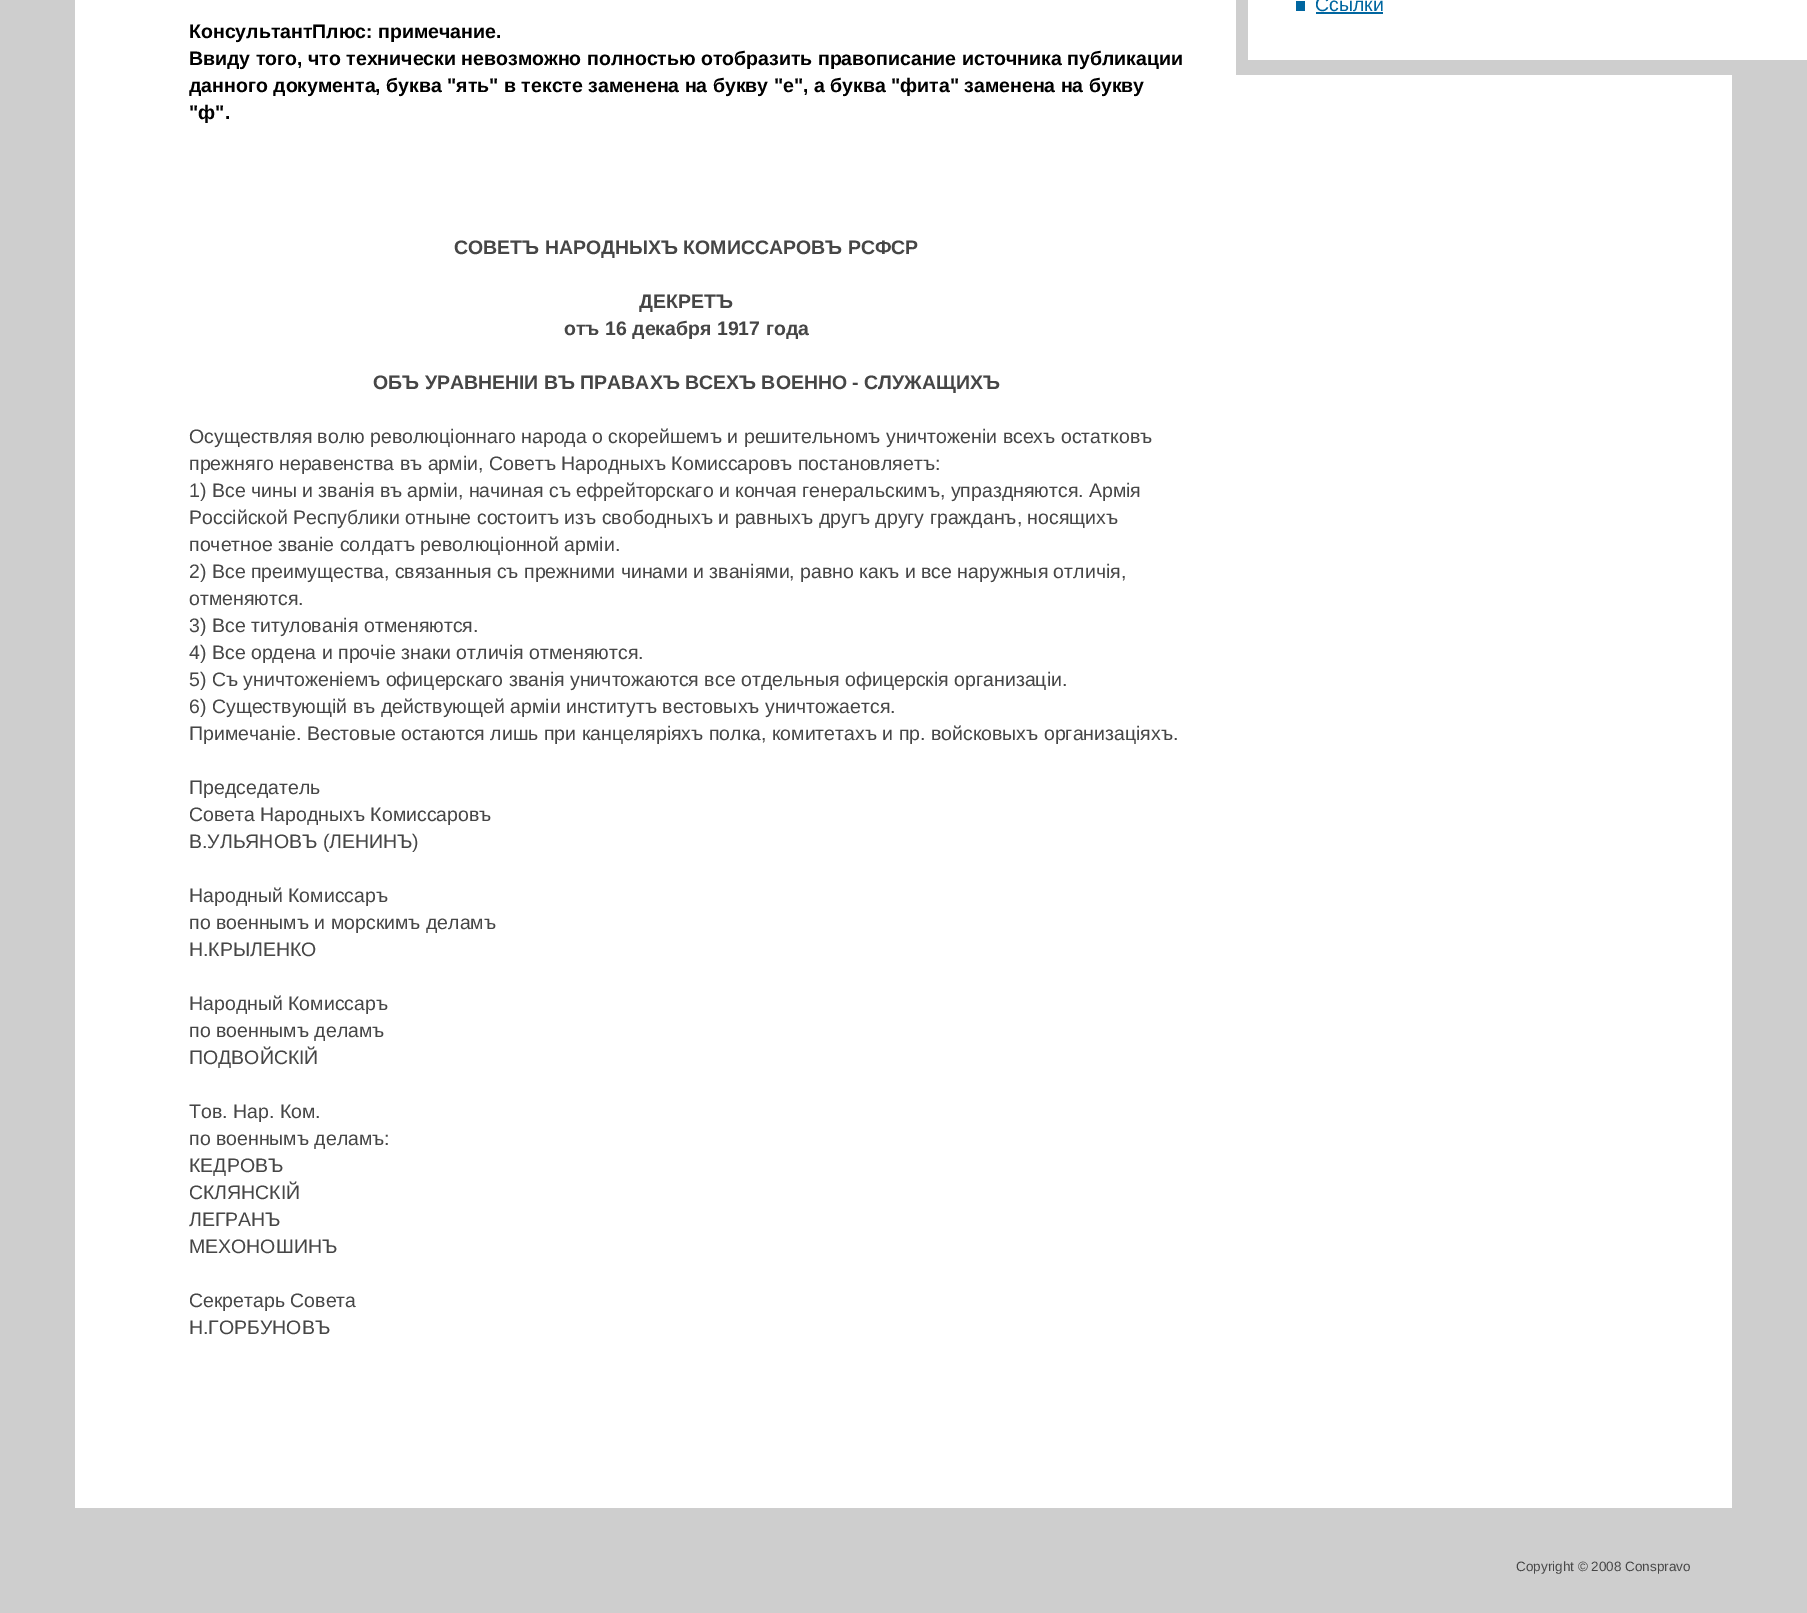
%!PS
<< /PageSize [1807 1613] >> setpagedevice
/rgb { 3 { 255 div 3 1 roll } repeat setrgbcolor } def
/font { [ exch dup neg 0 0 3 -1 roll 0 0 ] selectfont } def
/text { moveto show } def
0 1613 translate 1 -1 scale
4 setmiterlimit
206 206 206 rgb
0 0 1807 1613 rectfill
255 255 255 rgb
75 0 1657 1508 rectfill
1732 0 75 60 rectfill
206 206 206 rgb
1248 60 484 15 rectfill
1236 0 12 75 rectfill
0 102 160 rgb
1296 1 9 10 rectfill
1316 12 67 2 rectfill
/LiberationSans-Regular 19.5 font
(Ссылки) 1315 11 text
/LiberationSans-Bold 19.5 font
0 0 0 rgb
(КонсультантПлюс: примечание.) 189 38 text
(Ввиду того, что технически невозможно полностью отобразить правописание источника публикации) 189 65 text
(данного документа, буква "ять" в тексте заменена на букву "е", а буква "фита" заменена на букву) 189 92 text
("ф".) 189 119 text
70 70 70 rgb
(СОВЕТЪ НАРОДНЫХЪ КОМИССАРОВЪ РСФСР) 454 254 text
(ДЕКРЕТЪ) 639 308 text
(отъ 16 декабря 1917 года) 564 335 text
(ОБЪ УРАВНЕНIИ ВЪ ПРАВАХЪ ВСЕХЪ ВОЕННО - СЛУЖАЩИХЪ) 373 389 text
/LiberationSans-Regular 19.5 font
(Осуществляя волю революцiоннаго народа о скорейшемъ и решительномъ уничтоженiи всехъ остатковъ) 189 443 text
(прежняго неравенства въ армiи, Советъ Народныхъ Комиссаровъ постановляетъ:) 189 470 text
(1\) Все чины и званiя въ армiи, начиная съ ефрейторскаго и кончая генеральскимъ, упраздняются. Армiя) 189 497 text
(Россiйской Республики отныне состоитъ изъ свободныхъ и равныхъ другъ другу гражданъ, носящихъ) 189 524 text
(почетное званiе солдатъ революцiонной армiи.) 189 551 text
(2\) Все преимущества, связанныя съ прежними чинами и званiями, равно какъ и все наружныя отличiя,) 189 578 text
(отменяются.) 189 605 text
(3\) Все титулованiя отменяются.) 189 632 text
(4\) Все ордена и прочiе знаки отличiя отменяются.) 189 659 text
(5\) Съ уничтоженiемъ офицерскаго званiя уничтожаются все отдельныя офицерскiя организацiи.) 189 686 text
(6\) Существующiй въ действующей армiи институтъ вестовыхъ уничтожается.) 189 713 text
(Примечанiе. Вестовые остаются лишь при канцелярiяхъ полка, комитетахъ и пр. войсковыхъ организацiяхъ.) 189 740 text
(Председатель) 189 794 text
(Совета Народныхъ Комиссаровъ) 189 821 text
(В.УЛЬЯНОВЪ \(ЛЕНИНЪ\)) 189 848 text
(Народный Комиссаръ) 189 902 text
(по военнымъ и морскимъ деламъ) 189 929 text
(Н.КРЫЛЕНКО) 189 956 text
(Народный Комиссаръ) 189 1010 text
(по военнымъ деламъ) 189 1037 text
(ПОДВОЙСКIЙ) 189 1064 text
(Тов. Нар. Ком.) 189 1118 text
(по военнымъ деламъ:) 189 1145 text
(КЕДРОВЪ) 189 1172 text
(СКЛЯНСКIЙ) 189 1199 text
(ЛЕГРАНЪ) 189 1226 text
(МЕХОНОШИНЪ) 189 1253 text
(Секретарь Совета) 189 1307 text
(Н.ГОРБУНОВЪ) 189 1334 text
/LiberationSans-Regular 13.5 font
(Copyright © 2008 Conspravo) 1516 1571 text
showpage
